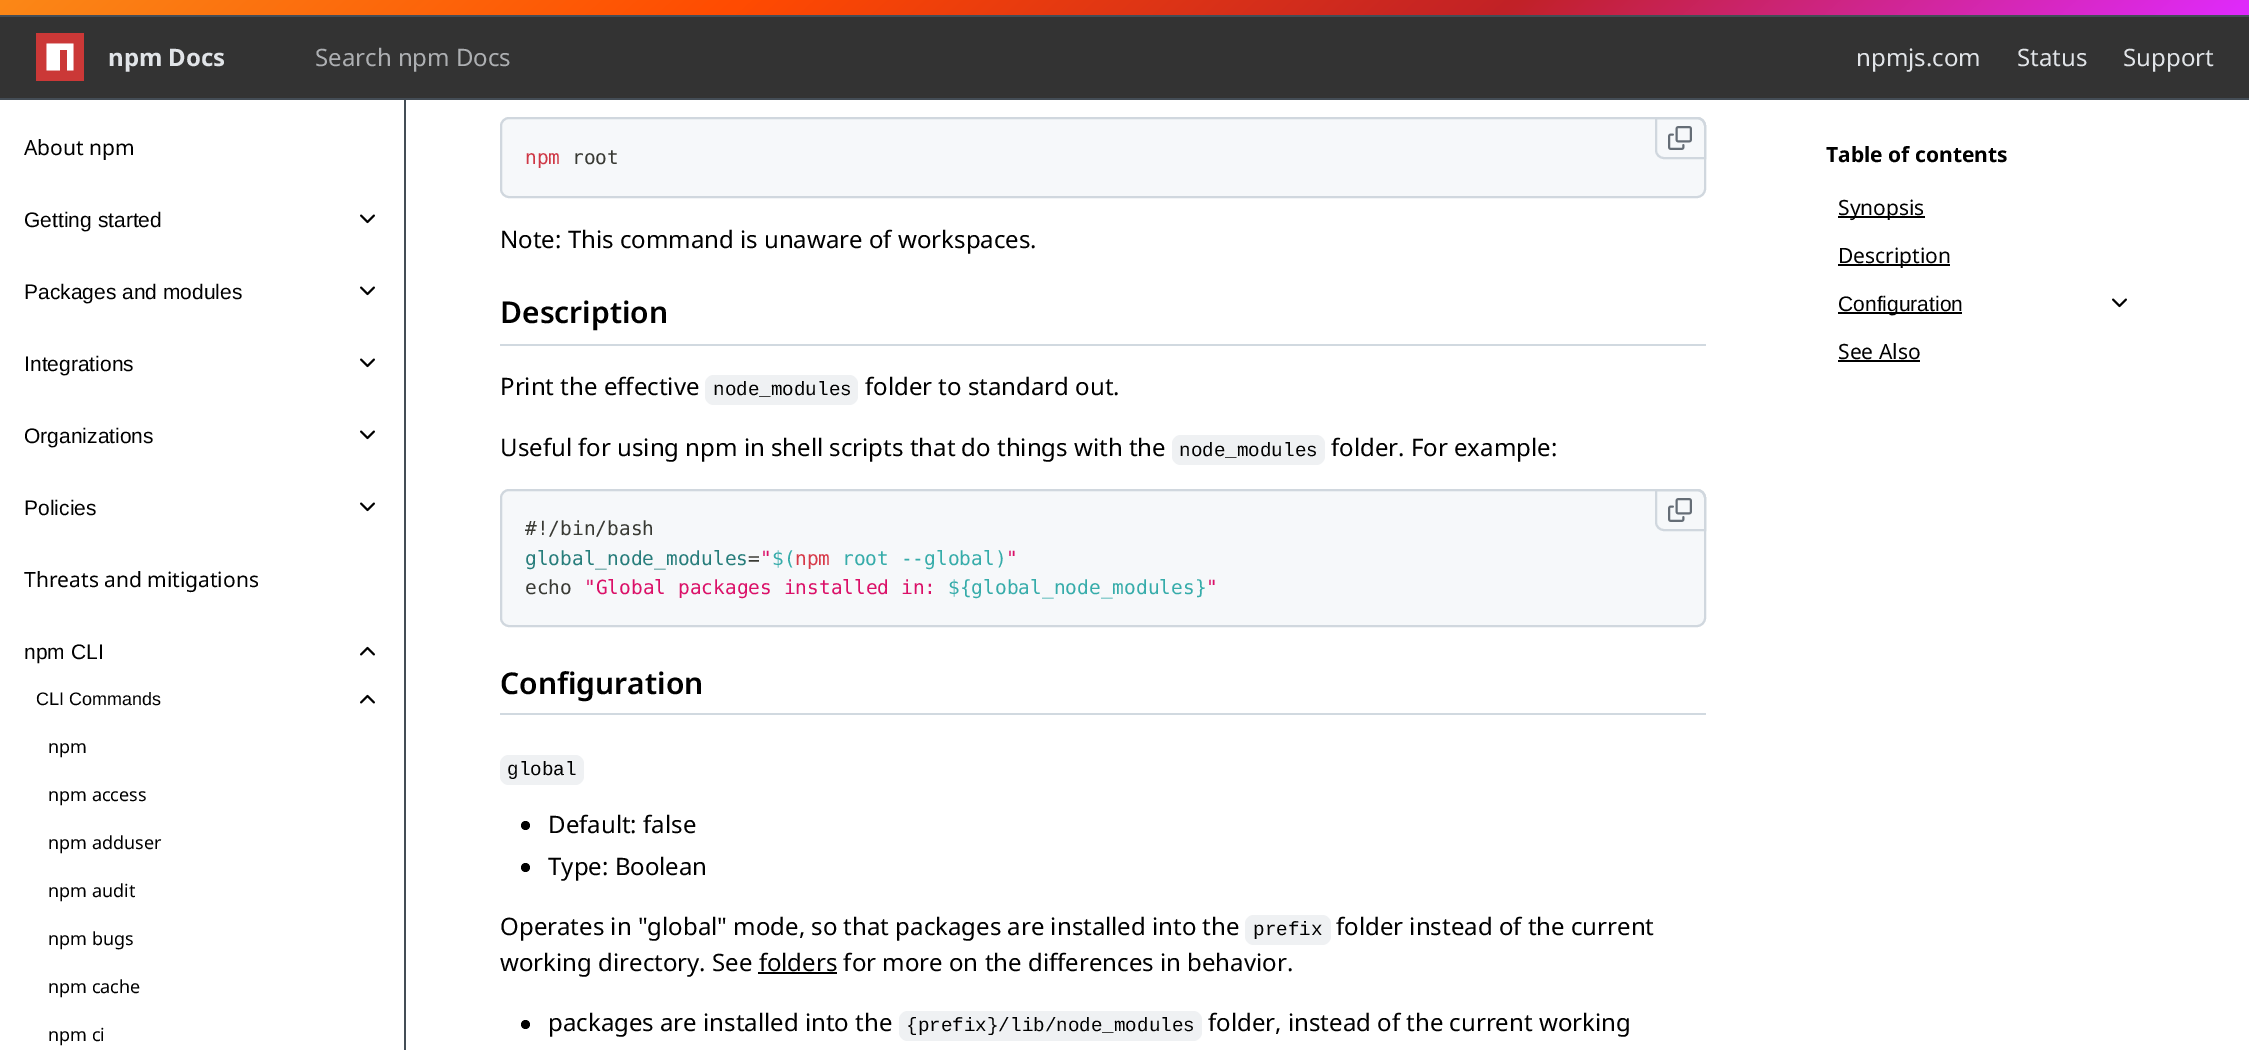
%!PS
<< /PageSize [2249 1050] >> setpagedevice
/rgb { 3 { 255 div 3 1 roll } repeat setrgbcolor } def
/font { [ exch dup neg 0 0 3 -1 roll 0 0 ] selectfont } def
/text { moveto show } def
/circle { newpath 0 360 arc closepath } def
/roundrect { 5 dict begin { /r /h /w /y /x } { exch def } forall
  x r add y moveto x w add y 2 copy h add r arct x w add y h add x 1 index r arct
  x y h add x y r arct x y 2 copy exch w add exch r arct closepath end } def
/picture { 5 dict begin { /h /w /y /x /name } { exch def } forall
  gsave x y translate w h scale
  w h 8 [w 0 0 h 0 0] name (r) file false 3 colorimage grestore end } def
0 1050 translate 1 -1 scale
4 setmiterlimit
255 255 255 rgb
0 0 2249 1050 rectfill
gsave 0 0 moveto 2249 0 rlineto 0 15 rlineto -2249 0 rlineto closepath clip newpath
<< /ShadingType 2 /ColorSpace /DeviceRGB /Coords [637 -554 1613 569] /Extend [true true] /Function << /FunctionType 3 /Domain [0 1] /Functions [<< /FunctionType 2 /Domain [0 1] /C0 [0.984 0.533 0.09] /C1 [1 0.294 0.004] /N 1 >> << /FunctionType 2 /Domain [0 1] /C0 [1 0.294 0.004] /C1 [0.757 0.129 0.153] /N 1 >> << /FunctionType 2 /Domain [0 1] /C0 [0.757 0.129 0.153] /C1 [0.878 0.165 1] /N 1 >>] /Bounds [0.33 0.67] /Encode [0 1 0 1 0 1] >> >> shfill grestore
51 51 51 rgb
0 17 2249 81 rectfill
68 77 86 rgb
0 15 2249 2 rectfill
404 99 2 951 rectfill
0 98 2249 2 rectfill
203 56 55 rgb
36 33 48 48 rectfill
255 255 255 rgb
46.5 70.5 moveto 13.5 0 rlineto 0 -20.5 rlineto 7 0 rlineto 0 20.5 rlineto 6.5 0 rlineto 0 -27 rlineto -27 0 rlineto closepath fill
(img_01.rgb) 360 214 15 10 picture
(img_01.rgb) 360 286 15 10 picture
(img_01.rgb) 360 358 15 10 picture
(img_01.rgb) 360 430 15 10 picture
(img_01.rgb) 360 502 15 10 picture
(img_02.rgb) 360 646 15 10 picture
(img_02.rgb) 360 694 15 10 picture
246 248 250 rgb
501 118 1204 79 8 roundrect gsave fill grestore
208 215 222 rgb
2 setlinewidth
stroke
1656 118 moveto 41 0 rlineto 4.5 0 8 3.5 8 8 rcurveto 0 32 rlineto -41 0 rlineto -4.5 0 -8 -3.5 -8 -8 rcurveto closepath stroke
(img_03.rgb) 1668 126 24 24 picture
209 217 224 rgb
500 344 1206 2 rectfill
239 241 243 rgb
705 375 153 30 9 roundrect fill
1172 435 153 30 9 roundrect fill
246 248 250 rgb
501 490 1204 136 8 roundrect gsave fill grestore
208 215 222 rgb
stroke
1656 490 moveto 41 0 rlineto 4.5 0 8 3.5 8 8 rcurveto 0 32 rlineto -41 0 rlineto -4.5 0 -8 -3.5 -8 -8 rcurveto closepath stroke
(img_03.rgb) 1668 498 24 24 picture
209 217 224 rgb
500 713 1206 2 rectfill
239 241 243 rgb
500 755 84 30 9 roundrect fill
0 0 0 rgb
525.5 825.5 4.5 circle fill
525.5 867.5 4.5 circle fill
239 241 243 rgb
1245 915 86 30 9 roundrect fill
0 0 0 rgb
758 972 79 2 rectfill
525.5 1024.5 4.5 circle fill
239 241 243 rgb
899 1011 303 30 9 roundrect fill
0 0 0 rgb
1838 216 87 2 rectfill
1838 264 112 2 rectfill
1838 312 124 2 rectfill
(img_01.rgb) 2112 298 15 10 picture
1838 360 82 2 rectfill
/NotoSans-Bold 24 font
225 228 232 rgb
(npm Docs) 108 66 text
/NotoSans-Regular 24 font
173 175 178 rgb
(Search npm Docs) 315 66 text
225 228 232 rgb
(npmjs.com) 1856 66 text
(Status) 2017 66 text
(Support) 2123 66 text
/NotoSans-Regular 21 font
0 0 0 rgb
(About npm) 24 155 text
/LiberationSans-Regular 21 font
(Getting started) 24 227 text
(Packages and modules) 24 299 text
(Integrations) 24 371 text
(Organizations) 24 443 text
(Policies) 24 515 text
/NotoSans-Regular 21 font
(Threats and mitigations) 24 587 text
/LiberationSans-Regular 21 font
(npm CLI) 24 659 text
/LiberationSans-Regular 18 font
(CLI Commands) 36 705 text
/NotoSans-Regular 18 font
(npm) 48 753 text
(npm access) 48 801 text
(npm adduser) 48 849 text
(npm audit) 48 897 text
(npm bugs) 48 945 text
(npm cache) 48 993 text
(npm ci) 48 1041 text
/DejaVuSansMono-Regular 19.5 font
207 56 70 rgb
(npm) 525 164 text
57 58 52 rgb
(root) 572 164 text
/NotoSans-Regular 24 font
0 0 0 rgb
(Note: This command is unaware of workspaces.) 500 248 text
/NotoSans-SemiBold 30 font
(Description) 500 323 text
/NotoSans-Regular 24 font
(Print the effective) 500 395 text
/LiberationMono-Regular 19.25 font
(node_modules) 713 395 text
/NotoSans-Regular 24 font
(folder to standard out.) 865 395 text
(Useful for using npm in shell scripts that do things with the) 500 456 text
/LiberationMono-Regular 19.25 font
(node_modules) 1179 456 text
/NotoSans-Regular 24 font
(folder. For example:) 1331 456 text
/DejaVuSansMono-Regular 19.5 font
57 58 52 rgb
(#!/bin/bash) 525 535 text
39 125 123 rgb
(global_node_modules) 525 565 text
57 58 52 rgb
(=) 748 565 text
219 16 104 rgb
(") 760 565 text
54 172 170 rgb
($\() 772 565 text
215 58 73 rgb
(npm) 795 565 text
54 172 170 rgb
(root --global\)) 842 565 text
219 16 104 rgb
(") 1006 565 text
57 58 52 rgb
(echo) 525 594 text
219 16 104 rgb
("Global packages installed in:) 584 594 text
54 172 170 rgb
(${global_node_modules}) 948 594 text
219 16 104 rgb
(") 1206 594 text
/NotoSans-SemiBold 30 font
0 0 0 rgb
(Configuration) 500 694 text
/LiberationMono-Regular 19.25 font
(global) 507 775 text
/NotoSans-Regular 24 font
(Default: false) 548 833 text
(Type: Boolean) 548 875 text
(Operates in "global" mode, so that packages are installed into the) 500 935 text
/LiberationMono-Regular 19.25 font
(prefix) 1253 935 text
/NotoSans-Regular 24 font
(folder instead of the current) 1336 935 text
(working directory. See folders for more on the differences in behavior.) 500 971 text
(packages are installed into the) 548 1031 text
/LiberationMono-Regular 19.25 font
({prefix}/lib/node_modules) 906 1031 text
/NotoSans-Regular 24 font
(folder, instead of the current working) 1208 1031 text
/NotoSans-Bold 21 font
(Table of contents) 1826 162 text
/NotoSans-Regular 21 font
(Synopsis) 1838 215 text
(Description) 1838 263 text
/LiberationSans-Regular 21 font
(Configuration) 1838 311 text
/NotoSans-Regular 21 font
(See Also) 1838 359 text
showpage
